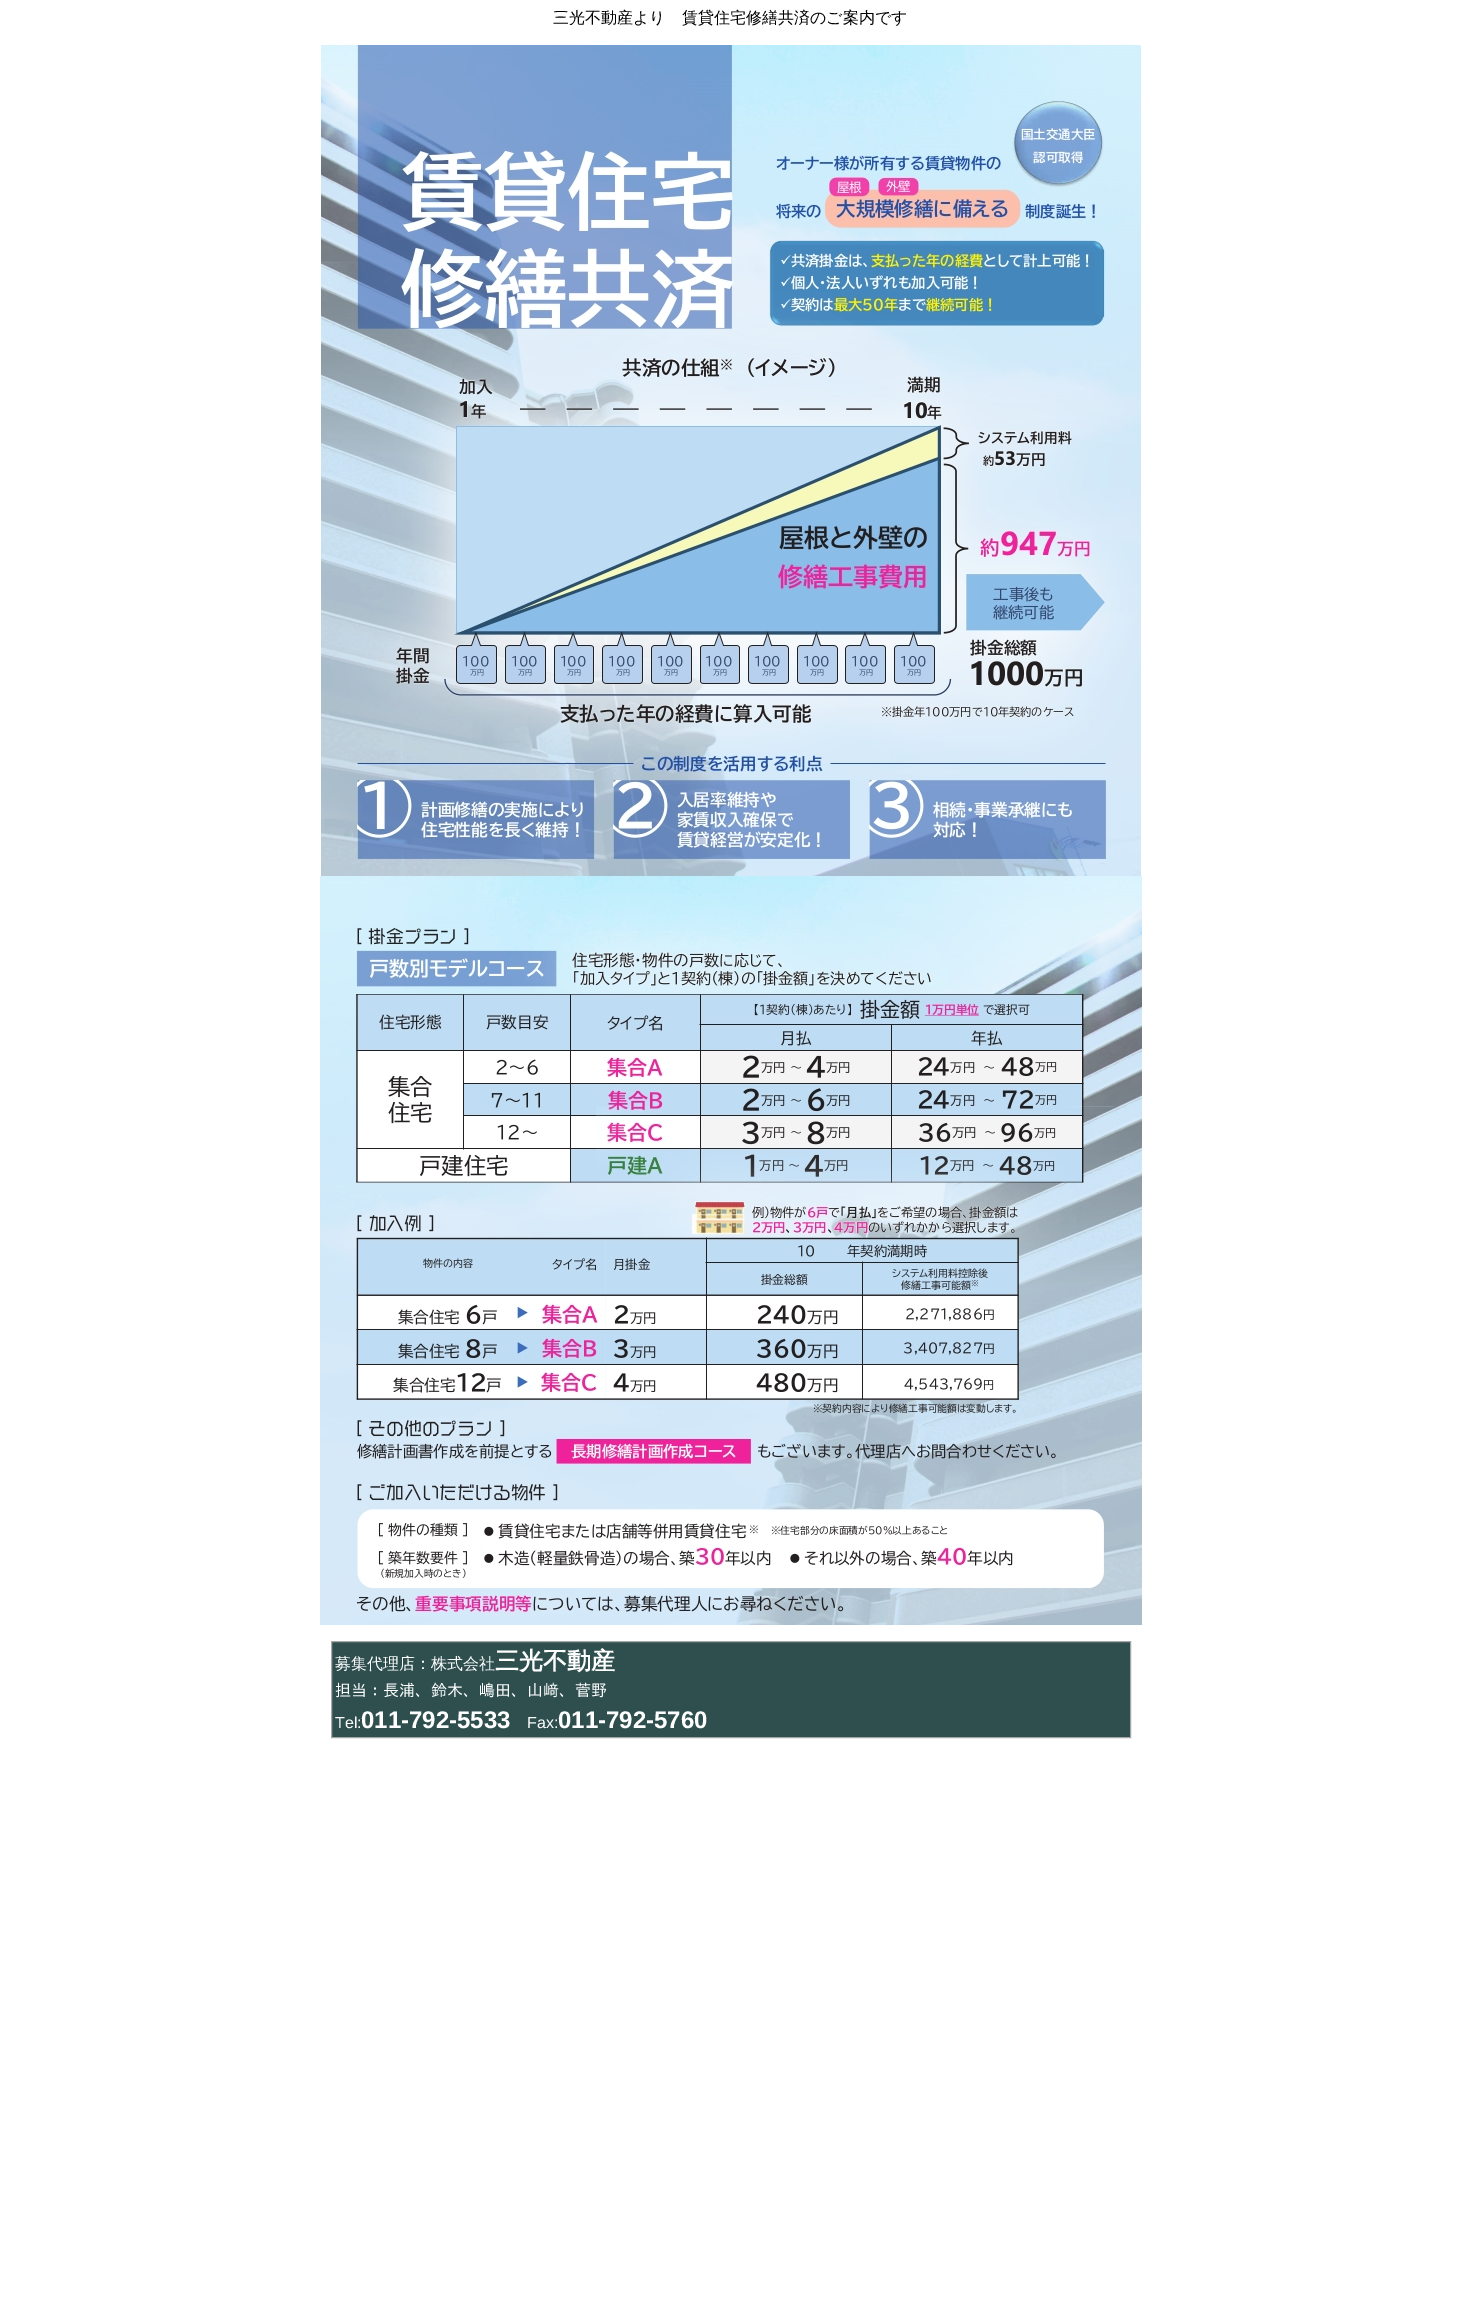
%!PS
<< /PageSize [1461 2323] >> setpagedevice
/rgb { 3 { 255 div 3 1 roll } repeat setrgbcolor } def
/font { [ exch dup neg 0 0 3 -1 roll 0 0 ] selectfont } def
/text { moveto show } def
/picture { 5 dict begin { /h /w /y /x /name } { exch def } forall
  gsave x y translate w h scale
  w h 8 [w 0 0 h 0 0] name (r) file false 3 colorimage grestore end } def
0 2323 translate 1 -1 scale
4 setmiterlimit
255 255 255 rgb
0 0 1461 2323 rectfill
(img_01.rgb) 321 45 820 831 picture
(img_02.rgb) 320 876 822 749 picture
47 79 79 rgb
331.5 1641.5 moveto 799 0 rlineto 0 96 rlineto -799 0 rlineto closepath gsave fill grestore
166 166 166 rgb
stroke
/WenQuanYiZenHei-Medium 16 font
0 0 0 rgb
(三光不動産より　賃貸住宅修繕共済のご案内です) 553 23 text
255 255 255 rgb
(募集代理店：株式会社) 335 1669 text
/WenQuanYiZenHei-Bold 24 font
(三光不動産) 495 1669 text
/IPAGothic-Regular 16 font
(担当：長浦、鈴木、嶋田、山﨑、菅野) 335 1696 text
/LiberationSans-Regular 16 font
(Tel:) 335 1728 text
/LiberationSans-Bold 24 font
(011-792-5533) 361 1728 text
/LiberationSans-Regular 16 font
(Fax:) 527 1728 text
/LiberationSans-Bold 24 font
(011-792-5760) 558 1728 text
showpage
